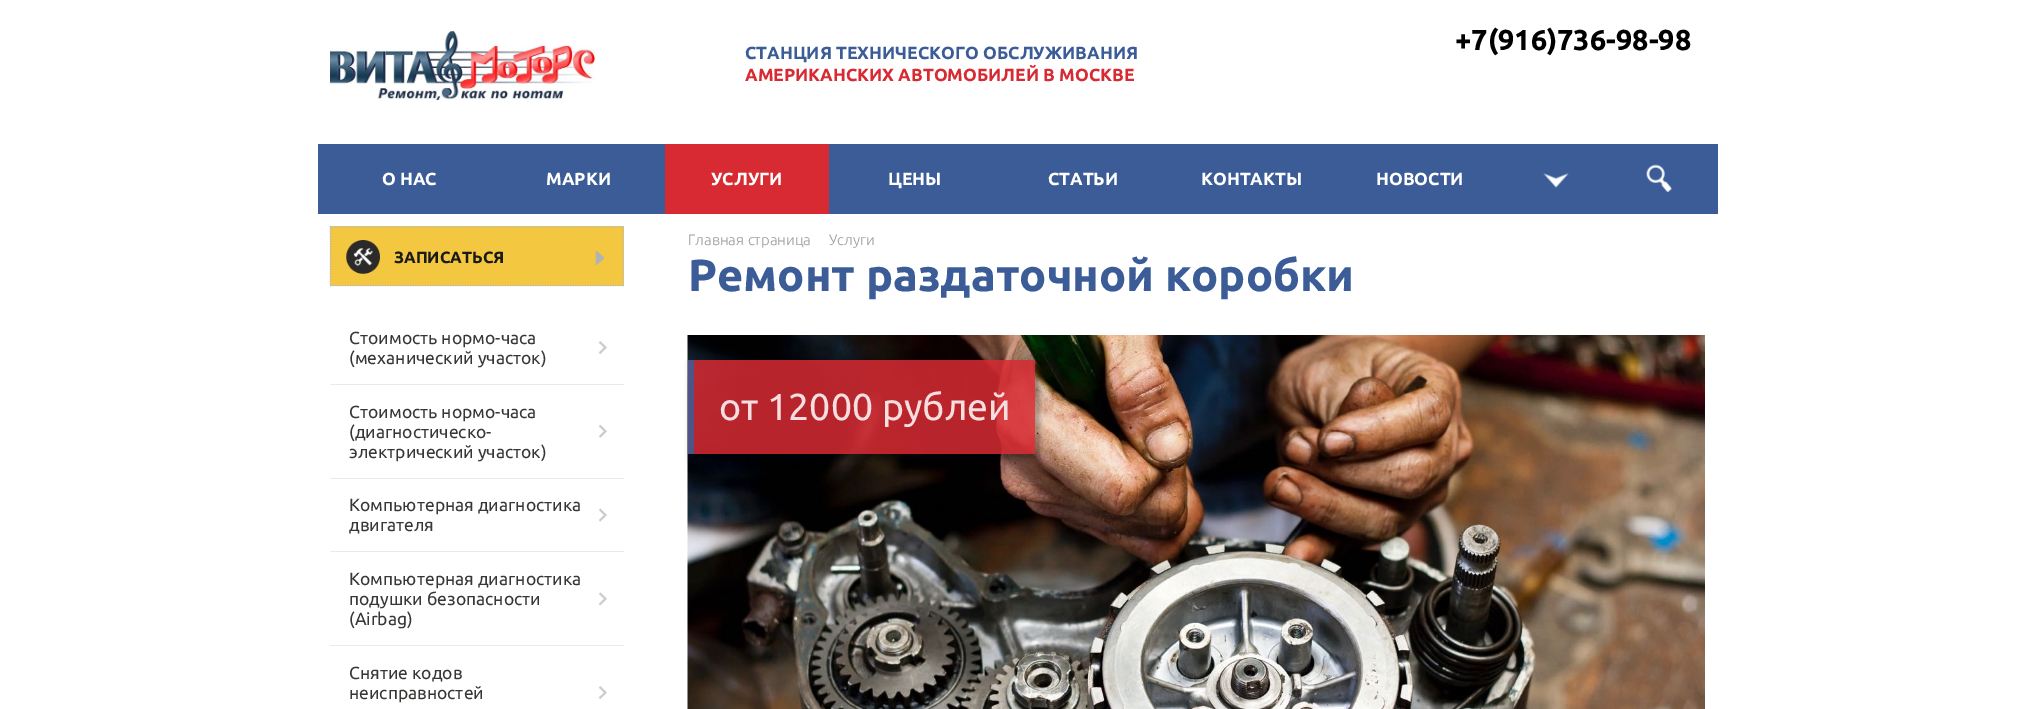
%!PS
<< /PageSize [2034 709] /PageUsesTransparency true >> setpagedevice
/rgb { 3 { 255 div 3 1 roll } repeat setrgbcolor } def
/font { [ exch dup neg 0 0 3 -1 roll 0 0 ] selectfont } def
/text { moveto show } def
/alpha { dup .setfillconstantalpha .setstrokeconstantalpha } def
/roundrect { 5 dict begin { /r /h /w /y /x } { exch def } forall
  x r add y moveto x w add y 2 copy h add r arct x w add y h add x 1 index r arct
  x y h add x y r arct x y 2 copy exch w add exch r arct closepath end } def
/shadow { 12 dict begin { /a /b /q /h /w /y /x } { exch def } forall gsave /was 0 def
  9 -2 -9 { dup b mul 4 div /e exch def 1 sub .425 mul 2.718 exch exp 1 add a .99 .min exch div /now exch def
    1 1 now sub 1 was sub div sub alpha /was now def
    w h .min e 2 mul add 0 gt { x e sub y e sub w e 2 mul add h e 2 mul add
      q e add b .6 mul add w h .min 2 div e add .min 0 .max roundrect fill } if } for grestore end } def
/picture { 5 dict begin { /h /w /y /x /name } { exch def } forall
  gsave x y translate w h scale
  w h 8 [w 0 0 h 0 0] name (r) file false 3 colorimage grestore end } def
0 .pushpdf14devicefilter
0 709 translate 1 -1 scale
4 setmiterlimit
255 255 255 rgb
0 0 2034 709 rectfill
(img_01.rgb) 330 31 268 69 picture
59 92 151 rgb
318 144 1400 70 rectfill
215 42 50 rgb
665 144 164 70 rectfill
(img_02.rgb) 1543 173 26 15 picture
(img_03.rgb) 1646 164 26 28 picture
243 200 64 rgb
330 226 294 60 rectfill
187 187 187 rgb
1.2 setlinewidth
[1.25 1.25] 0 setdash
330 227 moveto 294 0 rlineto stroke
623 226 moveto 0 60 rlineto stroke
330 285.5 moveto 294 0 rlineto stroke
330.5 226 moveto 0 60 rlineto stroke
(img_04.rgb) 346 240 34 34 picture
(img_05.rgb) 595 251 9 14 picture
(img_06.rgb) 598 341 9 14 picture
234 234 234 rgb
330 384 294 1 rectfill
(img_07.rgb) 599 424 8 14 picture
330 478 294 1 rectfill
(img_08.rgb) 599 508 8 14 picture
330 551 294 1 rectfill
(img_09.rgb) 598 592 9 14 picture
330 645 294 1 rectfill
(img_06.rgb) 598 686 9 14 picture
(img_10.rgb) 687 335 1018 374 picture
gsave
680 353 moveto 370 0 rlineto 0 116 rlineto -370 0 rlineto closepath 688 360 moveto 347 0 rlineto 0 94 rlineto -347 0 rlineto closepath eoclip newpath
0 0 0 rgb
690 363 350 96 0 3 0.28 shadow
grestore
0.85 alpha
215 42 50 rgb
688 360 347 94 rectfill
59 92 151 rgb
688 360 6 94 rectfill
/Ubuntu-Bold 17.5 font
1 alpha
(СТАНЦИЯ ТЕХНИЧЕСКОГО ОБСЛУЖИВАНИЯ) 745 59 text
215 42 50 rgb
(АМЕРИКАНСКИХ АВТОМОБИЛЕЙ В МОСКВЕ) 745 81 text
/Ubuntu-Bold 28.75 font
0 0 0 rgb
(+7\(916\)736-98-98) 1455 50 text
/Ubuntu-Bold 17.5 font
255 255 255 rgb
(О НАС) 382 185 text
(МАРКИ) 546 185 text
(УСЛУГИ) 711 185 text
(ЦЕНЫ) 888 185 text
(СТАТЬИ) 1048 185 text
(КОНТАКТЫ) 1201 185 text
(НОВОСТИ) 1376 185 text
/Ubuntu-Bold 16.25 font
26 26 25 rgb
(ЗАПИСАТЬСЯ) 394 263 text
/Ubuntu-Regular 17.5 font
56 55 53 rgb
(Стоимость нормо-часа) 349 344 text
(\(механический участок\)) 349 364 text
(Стоимость нормо-часа) 349 418 text
(\(диагностическо-) 349 438 text
(электрический участок\)) 349 458 text
(Компьютерная диагностика) 349 511 text
(двигателя) 349 531 text
(Компьютерная диагностика) 349 585 text
(подушки безопасности) 349 605 text
(\(Airbag\)) 349 625 text
(Снятие кодов) 349 679 text
(неисправностей) 349 699 text
/Ubuntu-Light 15 font
157 157 157 rgb
(Главная страница) 688 245 text
(Услуги) 829 245 text
/Ubuntu-Bold 45 font
59 92 151 rgb
(Ремонт раздаточной коробки) 688 291 text
/Ubuntu-Regular 37.5 font
245 222 223 rgb
(от 12000 рублей) 719 420 text
.poppdf14devicefilter showpage
